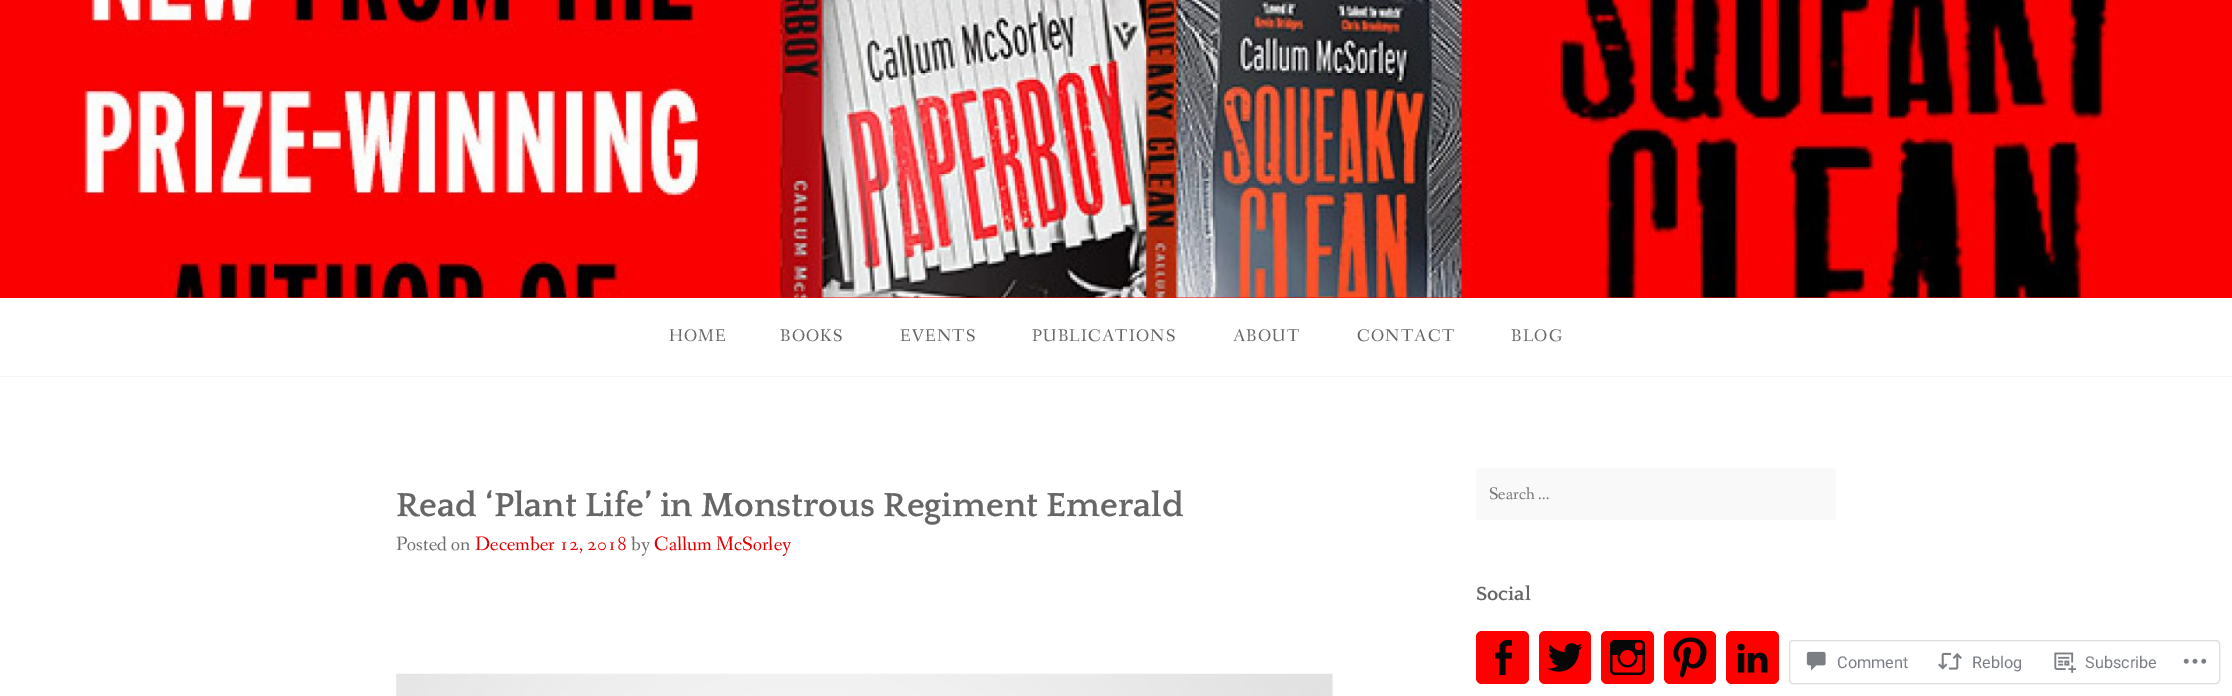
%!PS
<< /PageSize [2232 696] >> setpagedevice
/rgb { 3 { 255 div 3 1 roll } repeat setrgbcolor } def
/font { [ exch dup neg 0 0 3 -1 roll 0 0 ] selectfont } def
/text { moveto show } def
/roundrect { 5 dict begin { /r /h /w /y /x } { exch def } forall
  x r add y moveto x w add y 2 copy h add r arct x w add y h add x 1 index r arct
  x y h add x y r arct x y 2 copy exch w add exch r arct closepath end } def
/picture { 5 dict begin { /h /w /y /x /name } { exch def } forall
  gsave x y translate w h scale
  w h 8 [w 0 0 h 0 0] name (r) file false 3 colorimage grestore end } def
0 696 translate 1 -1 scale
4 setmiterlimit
255 255 255 rgb
0 0 2232 696 rectfill
255 0 0 rgb
0 297 2232 1 rectfill
(img_01.rgb) 0 0 2232 298 picture
245 245 245 rgb
0 376 2232 1 rectfill
(img_02.rgb) 396 673 937 23 picture
249 249 249 rgb
1476 468 360 52 4 roundrect fill
255 0 0 rgb
1476 631 53 53 6 roundrect fill
(img_03.rgb) 1495 640 17 35 picture
1539 631 52 53 6 roundrect fill
(img_04.rgb) 1547 643 36 29 picture
1601 631 53 53 6 roundrect fill
(img_05.rgb) 1610 640 35 35 picture
1664 631 52 53 6 roundrect fill
(img_06.rgb) 1673 637 34 41 picture
1726 631 53 53 6 roundrect fill
(img_07.rgb) 1737 643 31 30 picture
221 221 223 rgb
1789.5 640.5 430 43 3.5 roundrect stroke
(img_08.rgb) 1806 651 20 20 picture
(img_09.rgb) 1938 652 24 18 picture
(img_10.rgb) 2054 652 22 21 picture
(img_11.rgb) 2183 658 24 6 picture
/FanwoodText-Regular 17.5 font
102 102 102 rgb
669 341 moveto 1.25 0 (HOME) ashow
780 341 moveto 1.25 0 (BOOKS) ashow
900 341 moveto 1.25 0 (EVENTS) ashow
1032 341 moveto 1.25 0 (PUBLICATIONS) ashow
1233 341 moveto 1.25 0 (ABOUT) ashow
1357 341 moveto 1.25 0 (CONTACT) ashow
1511 341 moveto 1.25 0 (BLOG) ashow
/Quattrocento-Bold 35 font
(Read ‘Plant Life’ in Monstrous Regiment Emerald) 396 516 text
/FanwoodText-Regular 20 font
109 109 109 rgb
(Posted on) 396 550 text
224 0 0 rgb
(December 12, 2018) 475 550 text
109 109 109 rgb
(by) 631 550 text
224 0 0 rgb
(Callum McSorley) 654 550 text
/FanwoodText-Regular 17.5 font
117 117 117 rgb
(Search …) 1489 499 text
/Quattrocento-Bold 20 font
102 102 102 rgb
(Social) 1476 600 text
/Roboto-Regular 16.25 font
123 127 133 rgb
(Comment) 1837 668 text
(Reblog) 1972 668 text
(Subscribe) 2085 668 text
showpage
